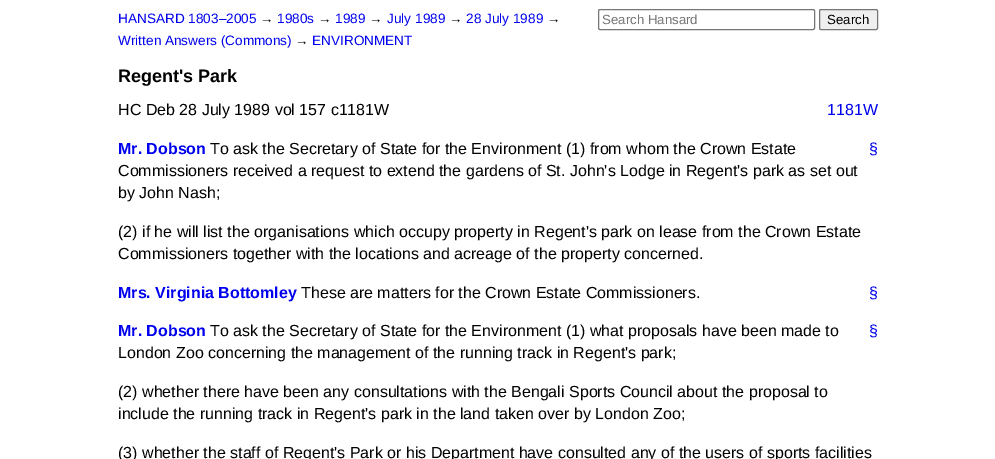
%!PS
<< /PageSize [995 459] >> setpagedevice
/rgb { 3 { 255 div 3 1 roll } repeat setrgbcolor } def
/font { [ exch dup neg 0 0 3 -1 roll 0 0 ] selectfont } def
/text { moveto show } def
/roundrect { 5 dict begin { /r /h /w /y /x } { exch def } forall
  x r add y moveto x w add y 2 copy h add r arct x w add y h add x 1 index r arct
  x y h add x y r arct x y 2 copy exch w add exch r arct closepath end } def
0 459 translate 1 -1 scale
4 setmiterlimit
255 255 255 rgb
0 0 995 459 rectfill
118 118 118 rgb
598.5 9.5 216 20 1.5 roundrect stroke
239 239 239 rgb
819.5 9.5 58 20 1.5 roundrect gsave fill grestore
118 118 118 rgb
stroke
/LiberationSans-Regular 13.6 font
0 0 238 rgb
(HANSARD 1803–2005) 118 23 text
0 0 0 rgb
(→) 260 23 text
0 0 238 rgb
(1980s) 277 23 text
0 0 0 rgb
(→) 318 23 text
0 0 238 rgb
(1989) 335 23 text
0 0 0 rgb
(→) 369 23 text
0 0 238 rgb
(July 1989) 387 23 text
0 0 0 rgb
(→) 449 23 text
0 0 238 rgb
(28 July 1989) 466 23 text
0 0 0 rgb
(→) 547 23 text
0 0 238 rgb
(Written Answers \(Commons\)) 118 45 text
0 0 0 rgb
(→) 295 45 text
0 0 238 rgb
(ENVIRONMENT) 312 45 text
/LiberationSans-Regular 13.25 font
117 117 117 rgb
(Search Hansard) 602 24 text
0 0 0 rgb
(Search) 827 24 text
/LiberationSans-Bold 18 font
(Regent's Park) 118 82 text
/LiberationSans-Regular 16 font
(HC Deb 28 July 1989 vol 157 c1181W) 118 115 text
0 0 238 rgb
(1181W) 827 115 text
/LiberationSans-Bold 16 font
(Mr. Dobson) 118 154 text
/LiberationSans-Regular 16 font
0 0 0 rgb
(To ask the Secretary of State for the Environment \(1\) from whom the Crown Estate) 210 154 text
0 0 238 rgb
(§) 869 154 text
0 0 0 rgb
(Commissioners received a request to extend the gardens of St. John's Lodge in Regent's park as set out) 118 176 text
(by John Nash;) 118 198 text
(\(2\) if he will list the organisations which occupy property in Regent's park on lease from the Crown Estate) 118 237 text
(Commissioners together with the locations and acreage of the property concerned.) 118 259 text
/LiberationSans-Bold 16 font
0 0 238 rgb
(Mrs. Virginia Bottomley) 118 298 text
/LiberationSans-Regular 16 font
0 0 0 rgb
(These are matters for the Crown Estate Commissioners.) 301 298 text
0 0 238 rgb
(§) 869 298 text
/LiberationSans-Bold 16 font
(Mr. Dobson) 118 336 text
/LiberationSans-Regular 16 font
0 0 0 rgb
(To ask the Secretary of State for the Environment \(1\) what proposals have been made to) 210 336 text
0 0 238 rgb
(§) 869 336 text
0 0 0 rgb
(London Zoo concerning the management of the running track in Regent's park;) 118 358 text
(\(2\) whether there have been any consultations with the Bengali Sports Council about the proposal to) 118 397 text
(include the running track in Regent's park in the land taken over by London Zoo;) 118 419 text
(\(3\) whether the staff of Regent's Park or his Department have consulted any of the users of sports facilities) 118 458 text
showpage
